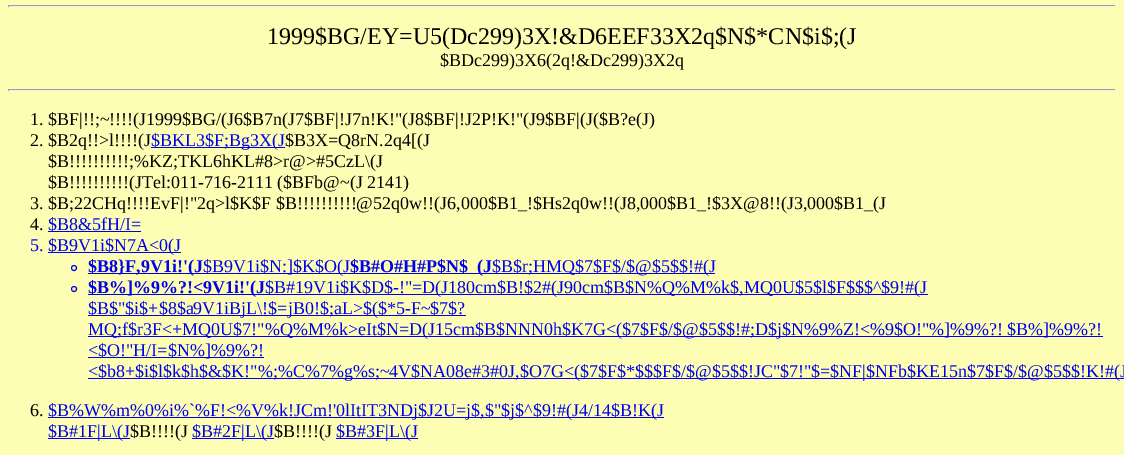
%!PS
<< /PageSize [1124 455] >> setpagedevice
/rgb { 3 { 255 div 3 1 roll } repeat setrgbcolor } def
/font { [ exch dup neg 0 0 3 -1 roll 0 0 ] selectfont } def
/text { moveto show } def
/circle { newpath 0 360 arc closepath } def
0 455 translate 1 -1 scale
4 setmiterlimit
253 253 179 rgb
0 0 1124 455 rectfill
159 159 159 rgb
8 5 1108 1 rectfill
238 238 238 rgb
1115 5 1 2 rectfill
8 6 1108 1 rectfill
159 159 159 rgb
8 5 1 2 rectfill
8 89 1108 1 rectfill
238 238 238 rgb
1115 89 1 2 rectfill
8 90 1108 1 rectfill
159 159 159 rgb
8 89 1 2 rectfill
0 0 238 rgb
151 147 134 1 rectfill
48 231 93 1 rectfill
48 252 133 1 rectfill
74 268 2.5 circle stroke
88 273 627 1 rectfill
74 289 2.5 circle stroke
88 294 840 1 rectfill
88 315 378 1 rectfill
88 336 1015 1 rectfill
88 357 176 1 rectfill
88 378 1036 1 rectfill
48 417 616 1 rectfill
48 438 82 1 rectfill
192 438 82 1 rectfill
336 438 82 1 rectfill
/LiberationSerif-Regular 24 font
0 0 0 rgb
(1999$BG/EY=U5\(Dc299\)3X!&D6EEF33X2q$N$*CN$i$;\(J) 267 44 text
/LiberationSerif-Regular 18 font
($BDc299\)3X6\(2q!&Dc299\)3X2q) 440 66 text
(1. $BF|!!;~!!!!\(J1999$BG/\(J6$B7n\(J7$BF|!J7n!K!"\(J8$BF|!J2P!K!"\(J9$BF|\(J\($B?e\(J\)) 30 125 text
(2. $B2q!!>l!!!!\(J) 30 146 text
0 0 238 rgb
($BKL3$F;Bg3X\(J) 151 146 text
0 0 0 rgb
($B3X=Q8rN.2q4[\(J) 285 146 text
($B!!!!!!!!!!;%KZ;TKL6hKL#8>r@>#5CzL\\\(J) 48 167 text
($B!!!!!!!!!!\(JTel:011-716-2111 \($BFb@~\(J 2141\)) 48 188 text
(3. $B;22CHq!!!!EvF|!"2q>l$K$F $B!!!!!!!!!!@52q0w!!\(J6,000$B1_!$Hs2q0w!!\(J8,000$B1_!$3X@8!!\(J3,000$B1_\(J) 30 209 text
(4.) 30 230 text
0 0 238 rgb
($B8&5fH/I=) 48 230 text
(5.) 30 251 text
($B9V1i$N7A<0\(J) 48 251 text
/LiberationSerif-Bold 18 font
($B8}F,9V1i!'\(J) 88 272 text
/LiberationSerif-Regular 18 font
($B9V1i$N:]$K$O\(J) 203 272 text
/LiberationSerif-Bold 18 font
($B#O#H#P$N$) 350 272 text
(\(J) 477 272 text
/LiberationSerif-Regular 18 font
($B$r;HMQ$7$F$/$@$5$$!#\(J) 492 272 text
/LiberationSerif-Bold 18 font
($B%]%9%?!<9V1i!'\(J) 88 293 text
/LiberationSerif-Regular 18 font
($B#19V1i$K$D$-!"=D\(J180cm$B!$2#\(J90cm$B$N%Q%M%k$,MQ0U$5$l$F$$$^$9!#\(J) 265 293 text
($B$"$i$+$8$a9V1iBjL\\!$=jB0!$;aL>$\($*5-F~$7$?) 88 314 text
(MQ;f$r3F<+MQ0U$7!"%Q%M%k>eIt$N=D\(J15cm$B$NNN0h$K7G<\($7$F$/$@$5$$!#;D$j$N%9%Z!<%9$O!"%]%9%?! $B%]%9%?!) 88 335 text
(<$O!"H/I=$N%]%9%?!) 88 356 text
(<$b8+$i$l$k$h$&$K!"%;%C%7%g%s;~4V$NA08e#3#0J,$O7G<\($7$F$*$$$F$/$@$5$$!JC"$7!"$=$NF|$NFb$KE15n$7$F$/$@$5$$!K!#\(J) 88 377 text
0 0 0 rgb
(6.) 30 416 text
0 0 238 rgb
($B%W%m%0%i%`%F!<%V%k!JCm!'0lItIT3NDj$J2U=j$,$"$j$^$9!#\(J4/14$B!K\(J) 48 416 text
($B#1F|L\\\(J) 48 437 text
0 0 0 rgb
($B!!!!\(J) 130 437 text
0 0 238 rgb
($B#2F|L\\\(J) 192 437 text
0 0 0 rgb
($B!!!!\(J) 274 437 text
0 0 238 rgb
($B#3F|L\\\(J) 336 437 text
showpage
